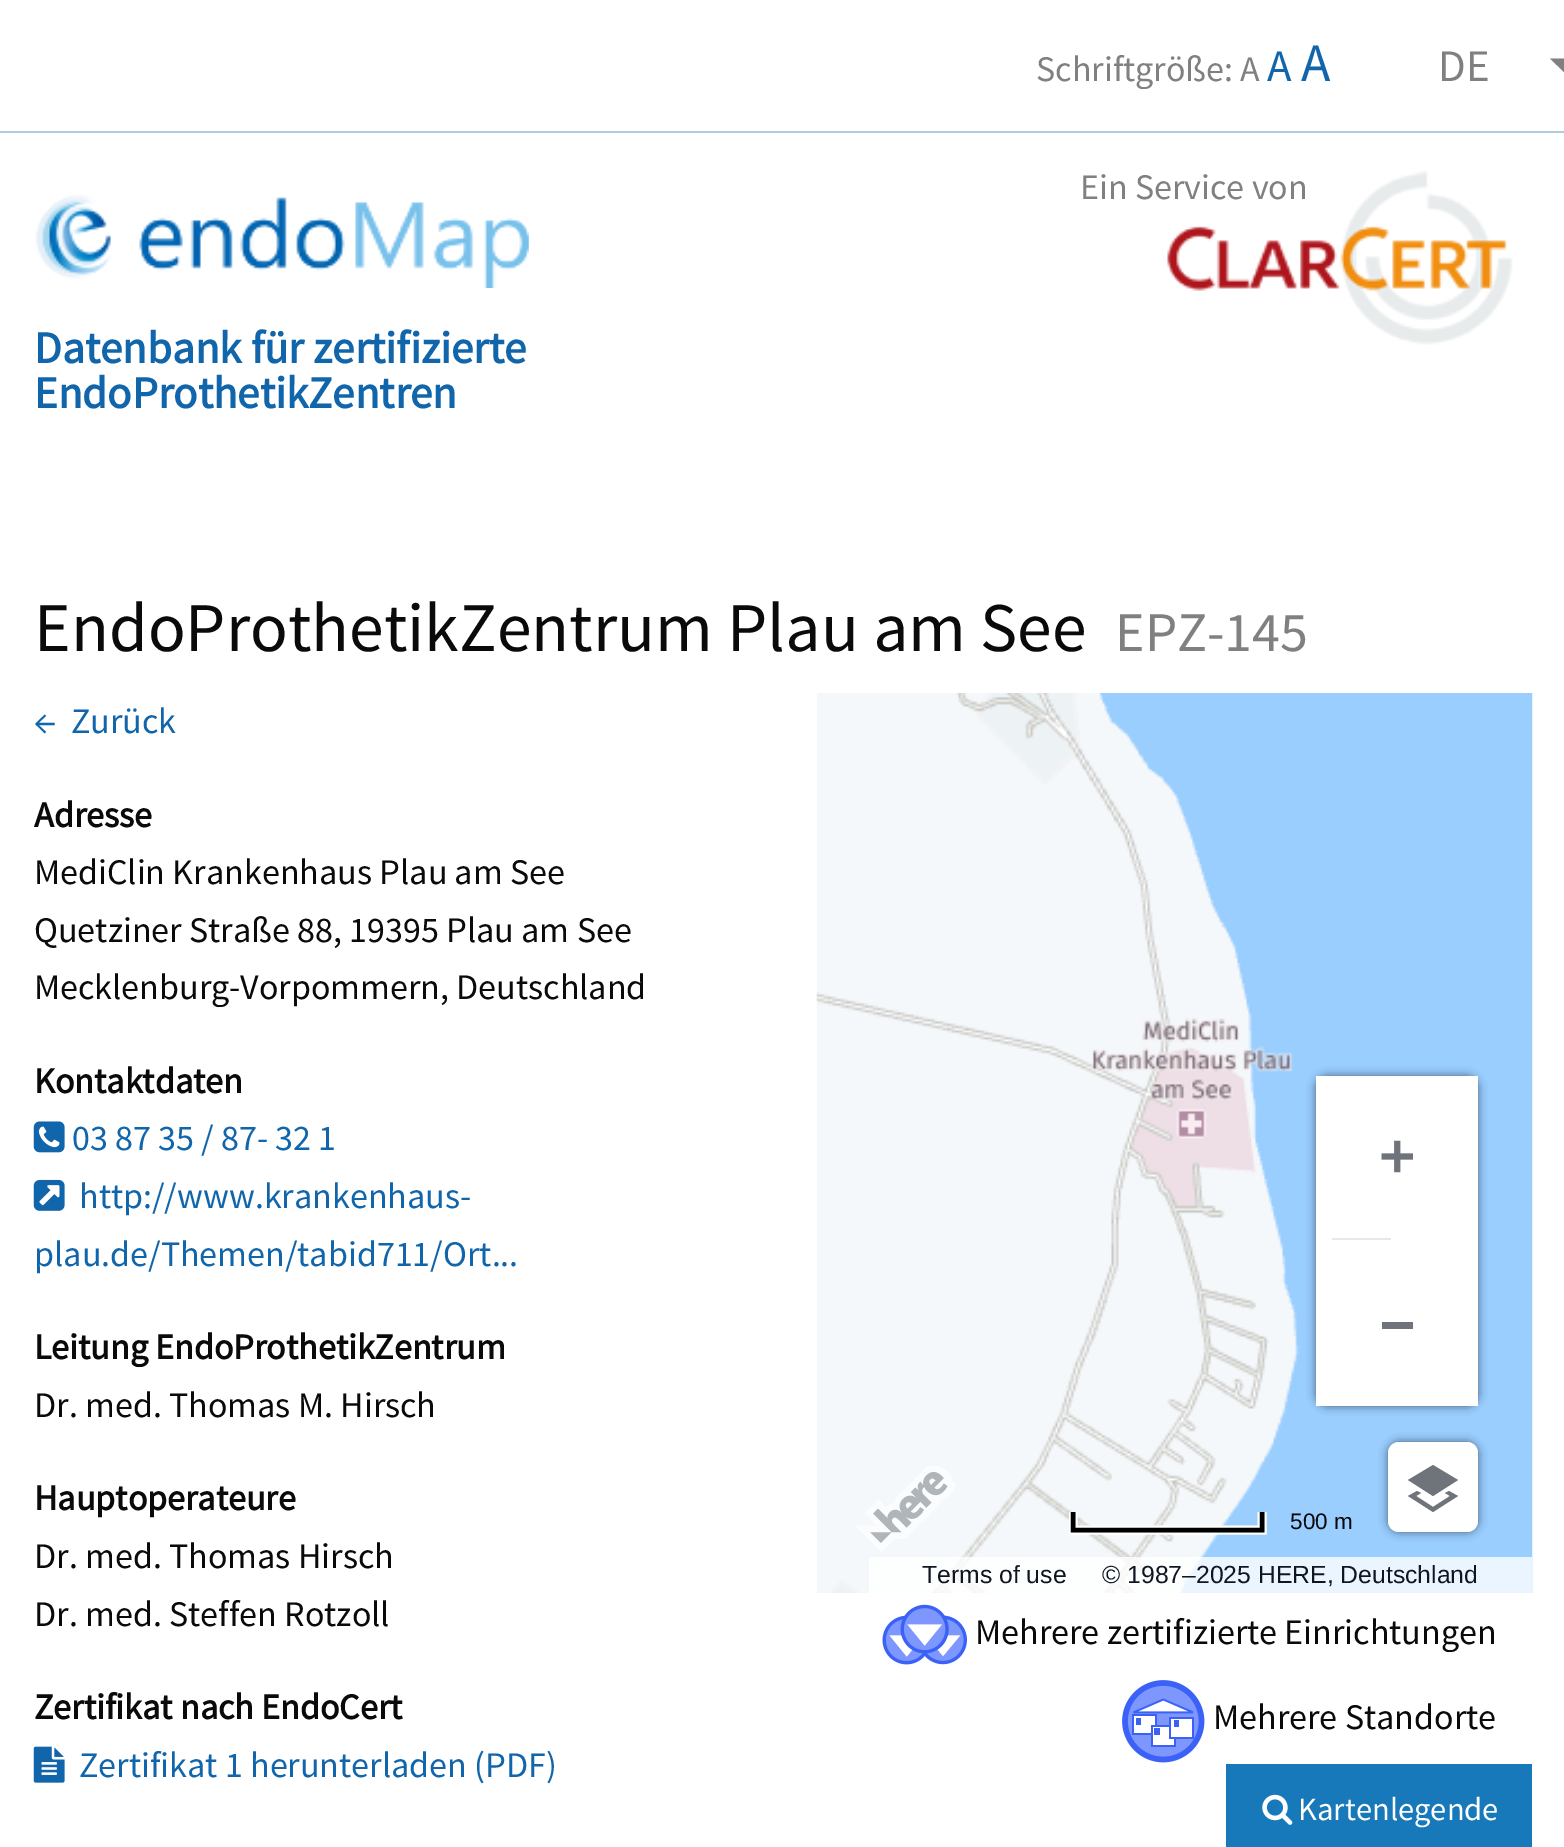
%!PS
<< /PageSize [1564 1847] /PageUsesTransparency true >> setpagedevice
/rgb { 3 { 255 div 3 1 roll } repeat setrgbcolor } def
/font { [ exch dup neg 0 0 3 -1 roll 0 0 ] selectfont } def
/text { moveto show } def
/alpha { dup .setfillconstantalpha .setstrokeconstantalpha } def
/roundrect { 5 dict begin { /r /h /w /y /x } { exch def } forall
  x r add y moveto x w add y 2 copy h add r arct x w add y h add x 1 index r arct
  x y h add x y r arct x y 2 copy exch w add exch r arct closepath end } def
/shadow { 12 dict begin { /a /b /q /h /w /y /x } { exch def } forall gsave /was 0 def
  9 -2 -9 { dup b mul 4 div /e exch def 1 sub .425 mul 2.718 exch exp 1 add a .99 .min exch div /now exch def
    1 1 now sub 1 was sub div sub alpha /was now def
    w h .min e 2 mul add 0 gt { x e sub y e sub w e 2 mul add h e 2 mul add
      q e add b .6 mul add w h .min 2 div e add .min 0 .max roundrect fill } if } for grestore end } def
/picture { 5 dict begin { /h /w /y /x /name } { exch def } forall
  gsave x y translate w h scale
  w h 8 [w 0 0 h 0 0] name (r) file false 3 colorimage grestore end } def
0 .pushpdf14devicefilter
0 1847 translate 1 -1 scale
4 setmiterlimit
255 255 255 rgb
0 0 1564 1847 rectfill
176 203 222 rgb
0 131 1564 2 rectfill
128 128 128 rgb
1550 58.5 moveto 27 0 rlineto -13 13.5 rlineto closepath fill
(img_01.rgb) 1167 171 346 174 picture
(img_02.rgb) 35 194 494 94 picture
(img_03.rgb) 33 1121 32 32 picture
(img_04.rgb) 33 1179 32 32 picture
(img_05.rgb) 33 1746 32 37 picture
245 248 250 rgb
829 693 254 900 rectfill
(img_06.rgb) 816 693 717 900 picture
15 22 33 rgb
1316 1076 162 330 11 4.5 0.6 shadow
255 255 255 rgb
1316 1076 162 330 rectfill
(img_07.rgb) 1381 1140 32 33 picture
231 232 233 rgb
1332 1238 59 2 rectfill
111 115 122 rgb
1382 1322 31 7 rectfill
gsave
1069 1508 198 27 rectclip
255 255 255 rgb
9 setlinewidth
1073 1512 moveto 0 18 rlineto 189 0 rlineto 0 -18 rlineto stroke
grestore
0 0 0 rgb
4.5 setlinewidth
1073 1512 moveto 0 18 rlineto 189 0 rlineto 0 -18 rlineto stroke
15 22 33 rgb
1388 1442 90 90 11 4.5 0.6 shadow
255 255 255 rgb
1388 1442 90 90 11 roundrect fill
111 115 122 rgb
1421 1493 moveto -5 3 rlineto 17 11 rlineto 17 -11 rlineto -5 -3 rlineto 4 -2 rlineto 9 5 rlineto -25 16 rlineto -25 -16 rlineto 9 -5 rlineto closepath 1433 1465 moveto 25 15 rlineto -25 16 rlineto -25 -16 rlineto closepath eofill
(img_08.rgb) 856 1466 100 86 picture
0.8 alpha
255 255 255 rgb
869 1557 663 36 rectfill
1 alpha
(img_09.rgb) 882 1604 85 61 picture
(img_10.rgb) 1122 1680 83 83 picture
23 121 186 rgb
1226 1764 306 83 rectfill
(img_11.rgb) 1262 1794 31 31 picture
/SourceSansPro-Regular 36 font
128 128 128 rgb
(Schriftgröße: A) 1036 81 text
/SourceSansPro-Regular 45 font
17 101 170 rgb
(A) 1267 81 text
/SourceSansPro-Regular 54 font
(A) 1301 81 text
/SourceSansPro-Regular 45 font
128 128 128 rgb
(DE) 1438 81 text
/SourceSansPro-Regular 36 font
(Ein Service von) 1080 199 text
/SourceSansPro-Bold 45 font
17 101 170 rgb
(Datenbank für zertifizierte) 34 363 text
(EndoProthetikZentren) 34 408 text
/SourceSansPro-Regular 69.75 font
10 10 10 rgb
(EndoProthetikZentrum Plau am See) 34 651 text
/SourceSansPro-Regular 56 font
128 128 128 rgb
(EPZ-145) 1115 651 text
/SourceSansPro-Regular 36 font
17 101 170 rgb
(←) 34 733 text
(Zurück) 71 733 text
/SourceSansPro-Bold 36 font
10 10 10 rgb
(Adresse) 34 827 text
/SourceSansPro-Regular 36 font
(MediClin Krankenhaus Plau am See) 34 884 text
(Quetziner Straße 88, 19395 Plau am See) 34 942 text
(Mecklenburg-Vorpommern, Deutschland) 34 999 text
/SourceSansPro-Bold 36 font
(Kontaktdaten) 34 1093 text
/SourceSansPro-Regular 36 font
17 101 170 rgb
(03 87 35 / 87- 32 1) 72 1150 text
(http://www.krankenhaus-) 79 1208 text
(plau.de/Themen/tabid711/Ort...) 34 1266 text
/SourceSansPro-Bold 36 font
10 10 10 rgb
(Leitung EndoProthetikZentrum) 34 1359 text
/SourceSansPro-Regular 36 font
(Dr. med. Thomas M. Hirsch) 34 1417 text
/SourceSansPro-Bold 36 font
(Hauptoperateure) 34 1510 text
/SourceSansPro-Regular 36 font
(Dr. med. Thomas Hirsch) 34 1568 text
(Dr. med. Steffen Rotzoll) 34 1626 text
/SourceSansPro-Bold 36 font
(Zertifikat nach EndoCert) 34 1719 text
/SourceSansPro-Regular 36 font
17 101 170 rgb
(Zertifikat 1 herunterladen \(PDF\)) 79 1777 text
/LiberationSans-Regular 22.5 font
10 10 10 rgb
(500 m) 1290 1529 text
/LiberationSans-Regular 24.75 font
15 22 33 rgb
(Terms of use) 922 1583 text
(© 1987–2025 HERE, Deutschland) 1102 1583 text
/SourceSansPro-Regular 36 font
10 10 10 rgb
(Mehrere zertifizierte Einrichtungen) 975 1644 text
(Mehrere Standorte) 1213 1729 text
/SourceSansPro-Regular 32.5 font
254 254 254 rgb
(Kartenlegende) 1298 1820 text
.poppdf14devicefilter showpage
